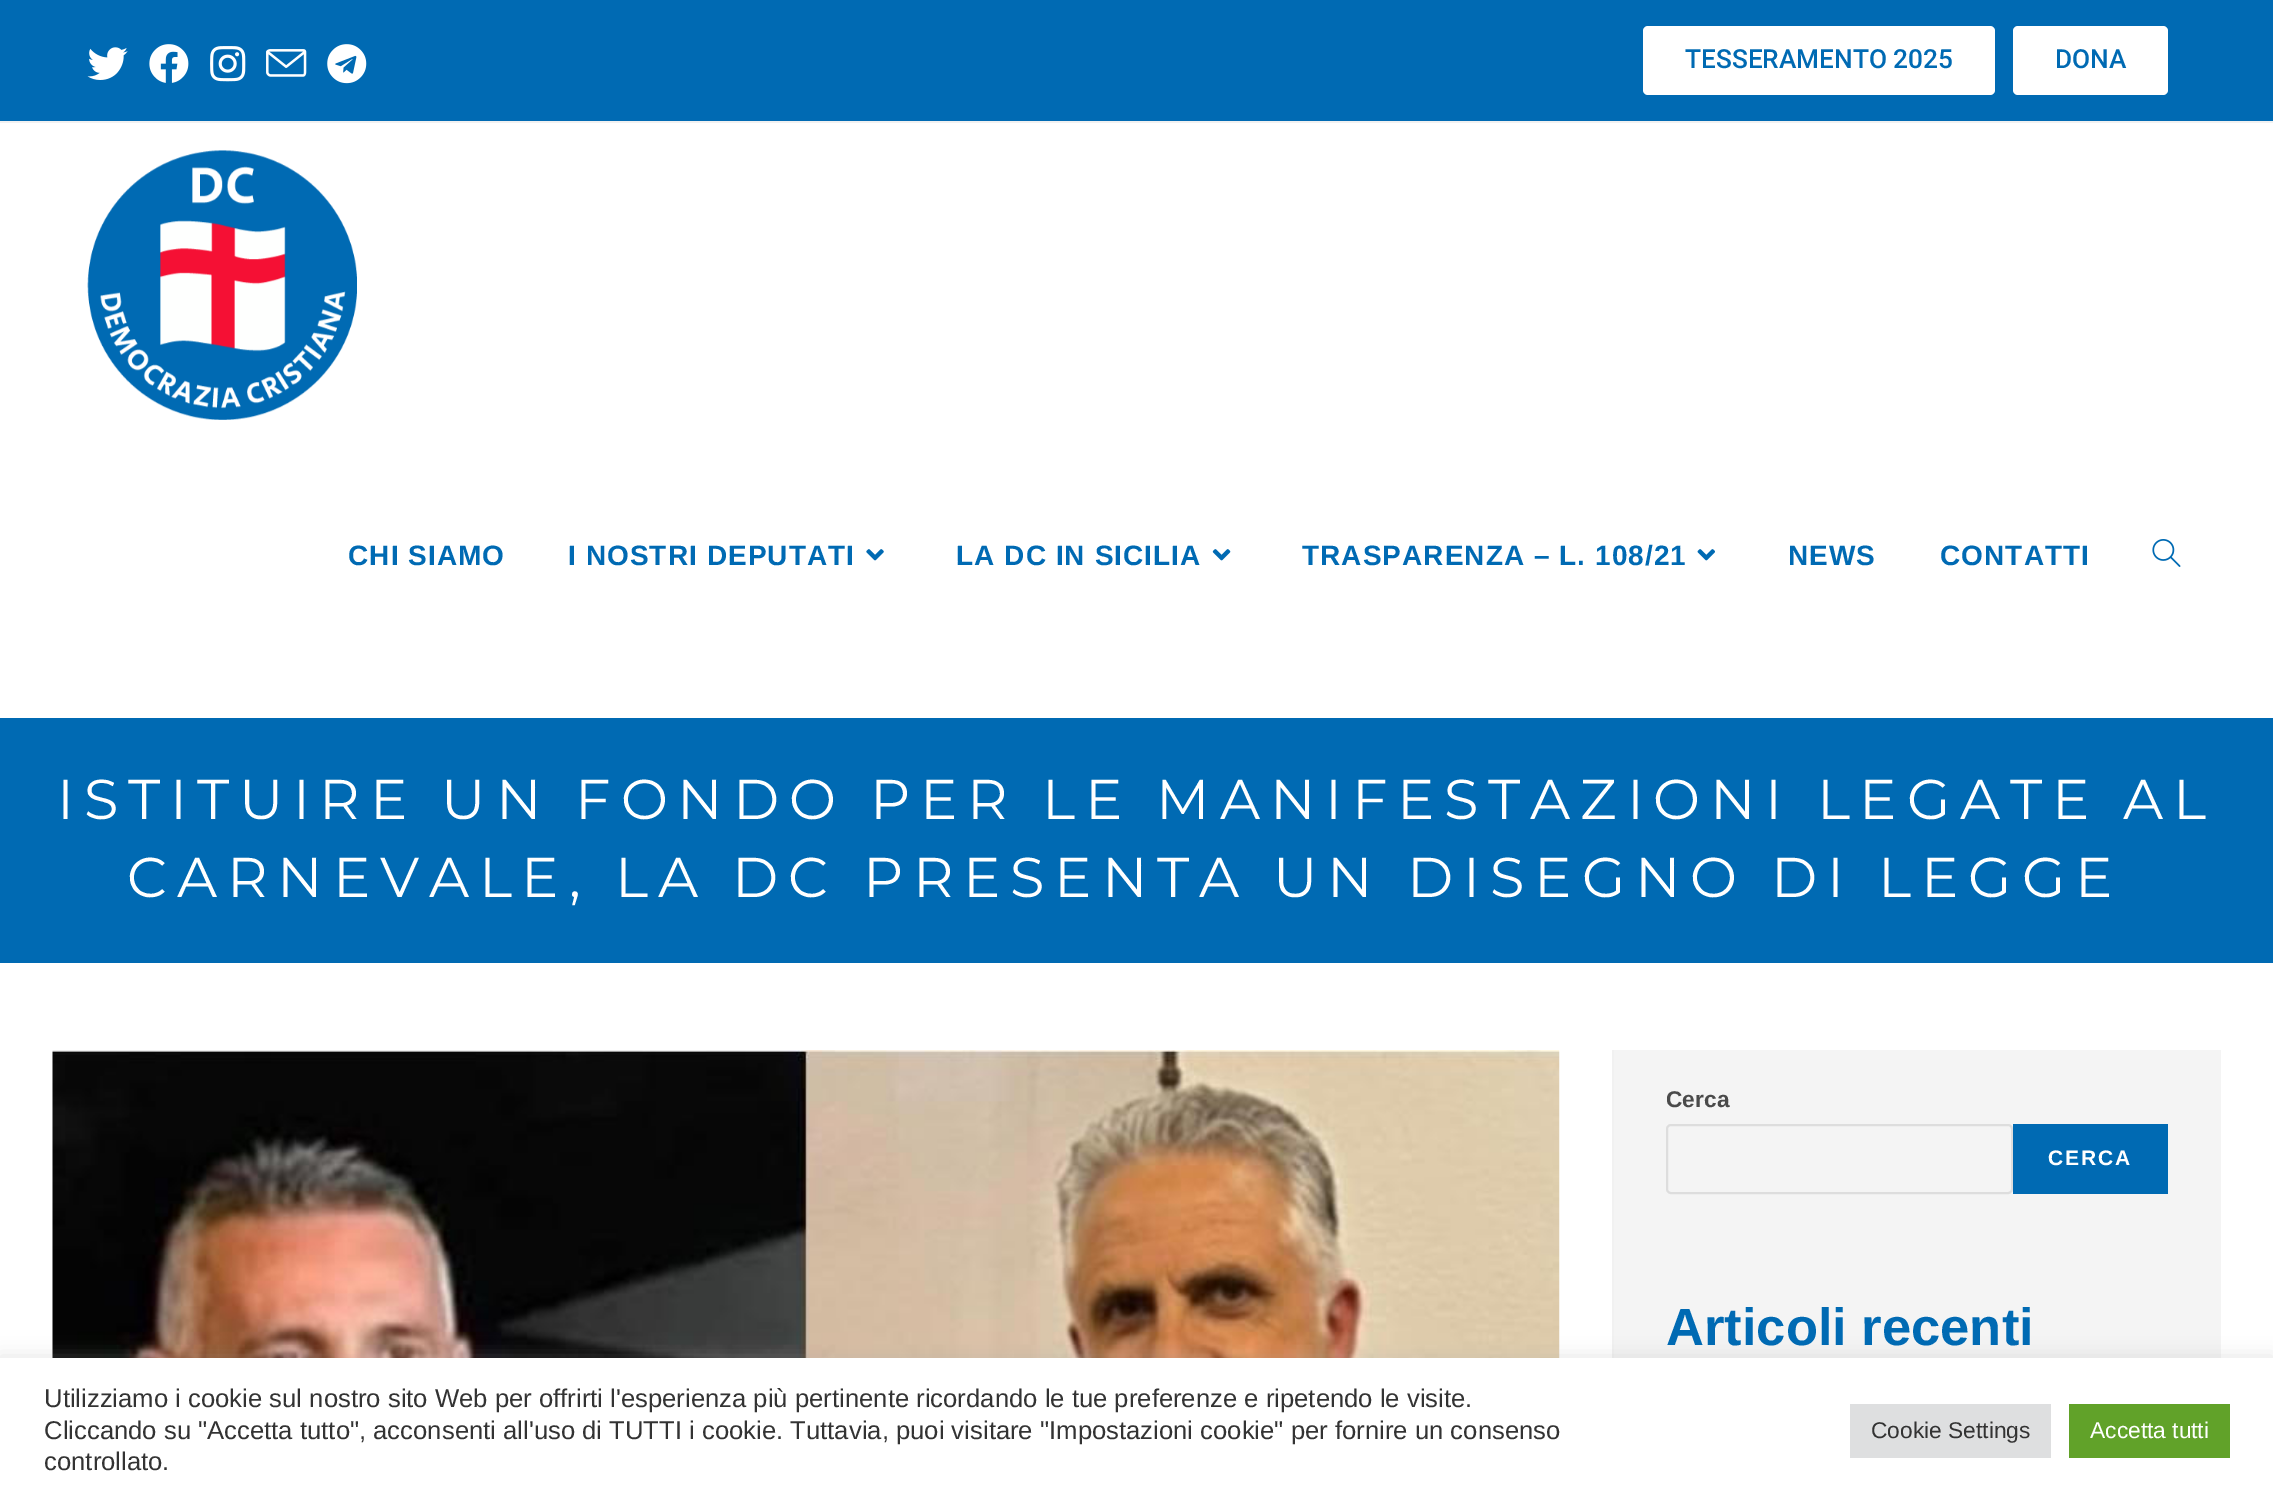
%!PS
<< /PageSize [2273 1500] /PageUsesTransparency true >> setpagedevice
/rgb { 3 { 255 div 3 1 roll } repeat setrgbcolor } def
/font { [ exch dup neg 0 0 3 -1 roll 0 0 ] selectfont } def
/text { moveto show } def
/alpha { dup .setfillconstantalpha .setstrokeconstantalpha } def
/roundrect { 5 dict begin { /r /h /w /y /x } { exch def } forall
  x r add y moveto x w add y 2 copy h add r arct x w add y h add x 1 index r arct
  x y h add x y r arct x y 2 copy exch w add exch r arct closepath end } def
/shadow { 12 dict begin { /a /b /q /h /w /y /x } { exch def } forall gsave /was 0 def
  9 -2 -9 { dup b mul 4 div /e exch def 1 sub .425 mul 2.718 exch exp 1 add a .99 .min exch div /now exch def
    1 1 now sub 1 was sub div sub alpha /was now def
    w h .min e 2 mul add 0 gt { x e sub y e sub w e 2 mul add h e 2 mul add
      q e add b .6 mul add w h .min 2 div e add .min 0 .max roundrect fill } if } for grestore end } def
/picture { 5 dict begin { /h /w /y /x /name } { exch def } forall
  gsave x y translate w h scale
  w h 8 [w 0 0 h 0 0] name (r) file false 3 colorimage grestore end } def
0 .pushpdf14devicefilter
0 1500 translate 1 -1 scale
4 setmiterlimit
255 255 255 rgb
0 0 2273 1500 rectfill
0 106 179 rgb
0 0 2273 121 rectfill
241 241 241 rgb
0 121 2273 2 rectfill
(img_01.rgb) 87 47 41 33 picture
(img_02.rgb) 149 44 40 39 picture
(img_03.rgb) 210 46 36 36 picture
(img_04.rgb) 266 49 41 28 picture
(img_05.rgb) 327 44 40 40 picture
255 255 255 rgb
1643 26 352 69 5 roundrect fill
2013 26 155 69 5 roundrect fill
(img_06.rgb) 87 150 270 270 picture
(img_07.rgb) 866 549 18 12 picture
(img_08.rgb) 1212 549 19 12 picture
(img_09.rgb) 1697 549 18 12 picture
(img_10.rgb) 2152 539 29 28 picture
0 106 179 rgb
0 718 2273 245 rectfill
241 241 241 rgb
1612 1050 2 308 rectfill
(img_11.rgb) 52 1050 1508 308 picture
244 244 244 rgb
1614 1050 607 308 rectfill
221 221 221 rgb
2 setlinewidth
1667 1125 345 68 4 roundrect stroke
0 106 179 rgb
2013 1124 155 70 rectfill
172 171 171 rgb
0 1356 2273 144 0 9 0.3 shadow
255 255 255 rgb
0 1358 2273 142 rectfill
222 223 224 rgb
1850 1404 201 54 rectfill
97 162 41 rgb
2069 1404 161 54 rectfill
/Roboto-Medium 26.25 font
0 106 179 rgb
(TESSERAMENTO 2025) 1685 68 text
(DONA) 2055 68 text
/LiberationSans-Bold 28 font
348 565 moveto 1.05 0 (CHI SIAMO) ashow
568 565 moveto 1.05 0 (I NOSTRI DEPUTATI) ashow
956 565 moveto 1.05 0 (LA DC IN SICILIA) ashow
1302 565 moveto 1.05 0 (TRASPARENZA – L. 108/21) ashow
1788 565 moveto 1.05 0 (NEWS) ashow
1940 565 moveto 1.05 0 (CONTATTI) ashow
/Montserrat-Thin 56 font
255 255 255 rgb
57 819 moveto 9.8 0 (ISTITUIRE UN FONDO PER LE MANIFESTAZIONI LEGATE AL) ashow
127 897 moveto 9.8 0 (CARNEVALE, LA DC PRESENTA UN DISEGNO DI LEGGE) ashow
/LiberationSans-Bold 22.75 font
74 74 74 rgb
(Cerca) 1666 1107 text
/LiberationSans-Bold 21 font
255 255 255 rgb
2048 1165 moveto 2 0 (CERCA) ashow
/LiberationSans-Bold 52.5 font
0 106 179 rgb
(Articoli recenti) 1666 1345 text
/LiberationSans-Regular 25.67 font
51 51 51 rgb
(Utilizziamo i cookie sul nostro sito Web per offrirti l'esperienza più pertinente ricordando le tue preferenze e ripetendo le visite.) 44 1407 text
(Cliccando su "Accetta tutto", acconsenti all'uso di TUTTI i cookie. Tuttavia, puoi visitare "Impostazioni cookie" per fornire un consenso) 44 1439 text
(controllato.) 44 1470 text
/LiberationSans-Regular 22.75 font
(Cookie Settings) 1871 1438 text
255 255 255 rgb
(Accetta tutti) 2090 1438 text
.poppdf14devicefilter showpage
